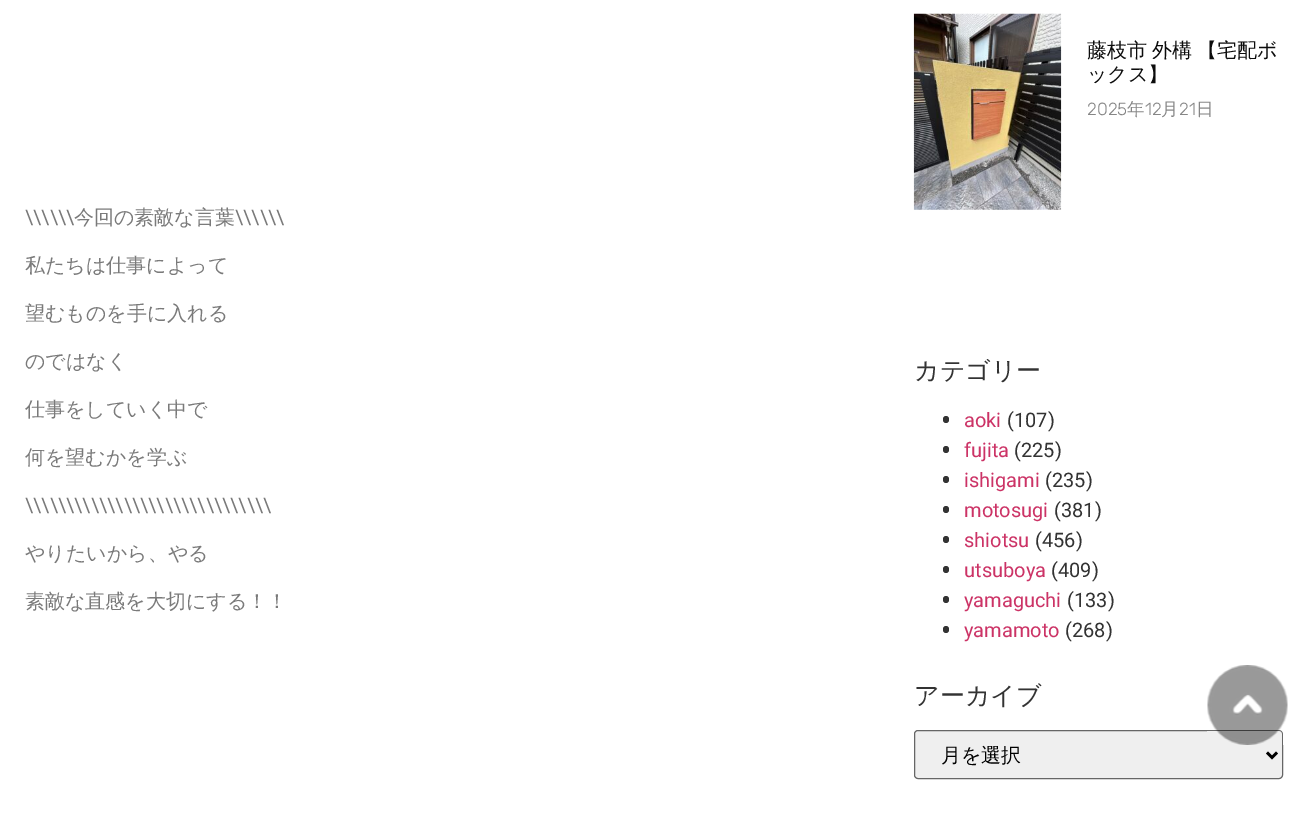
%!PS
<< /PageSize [1312 820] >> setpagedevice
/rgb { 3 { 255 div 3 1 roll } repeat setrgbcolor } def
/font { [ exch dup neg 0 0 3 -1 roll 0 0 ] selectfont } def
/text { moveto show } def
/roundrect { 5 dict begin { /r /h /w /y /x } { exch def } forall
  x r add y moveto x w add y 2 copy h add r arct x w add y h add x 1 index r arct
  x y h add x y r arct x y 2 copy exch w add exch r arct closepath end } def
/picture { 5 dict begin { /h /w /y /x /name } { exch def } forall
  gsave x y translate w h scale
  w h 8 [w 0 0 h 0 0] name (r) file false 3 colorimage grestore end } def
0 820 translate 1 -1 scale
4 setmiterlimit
255 255 255 rgb
0 0 1312 820 rectfill
(img_01.rgb) 913 13 149 197 picture
51 51 51 rgb
943 416 6 7 3 roundrect fill
943 446 6 7 3 roundrect fill
943 476 6 7 3 roundrect fill
943 506 6 7 3 roundrect fill
943 536 6 7 3 roundrect fill
943 566 6 7 3 roundrect fill
943 596 6 7 3 roundrect fill
943 626 6 7 3 roundrect fill
239 239 239 rgb
914.5 730.5 368 48 3.5 roundrect gsave fill grestore
102 102 102 rgb
stroke
0 0 0 rgb
2.5 setlinewidth
1267 752.5 moveto 5 5 rlineto 5 -5 rlineto stroke
(img_02.rgb) 1207 665 81 80 picture
/Roboto-Regular 20 font
122 122 122 rgb
(\\\\\\\\\\\\) 25 224 text
/WenQuanYiZenHei-Medium 20 font
(今回の素敵な言葉) 74 224 text
/Roboto-Regular 20 font
(\\\\\\\\\\\\) 235 224 text
/WenQuanYiZenHei-Medium 20 font
(私たちは仕事によって) 25 272 text
(望むものを手に入れる) 25 320 text
(のではなく) 25 368 text
(仕事をしていく中で) 25 416 text
(何を望むかを学ぶ) 25 464 text
/Roboto-Regular 20 font
(\\\\\\\\\\\\\\\\\\\\\\\\\\\\\\\\\\\\\\\\\\\\\\\\\\\\\\\\\\\\) 25 512 text
/WenQuanYiZenHei-Medium 20 font
(やりたいから、やる) 25 560 text
(素敵な直感を大切にする！！) 25 608 text
12 12 12 rgb
1087 57 moveto -1 0 32 (藤枝市 外構 【宅配ボ) widthshow
(ックス】) 1087 81 text
/Rubik-Light 17.5 font
134 134 134 rgb
(2025) 1087 115 text
/WenQuanYiZenHei-Medium 17.5 font
(年) 1127 115 text
/Rubik-Light 17.5 font
(12) 1145 115 text
/WenQuanYiZenHei-Medium 17.5 font
(月) 1161 115 text
/Rubik-Light 17.5 font
(21) 1179 115 text
/WenQuanYiZenHei-Medium 17.5 font
(日) 1196 115 text
/WenQuanYiZenHei-Medium 25 font
51 51 51 rgb
(カテゴリー) 914 379 text
/Roboto-Regular 20 font
204 51 102 rgb
(aoki) 964 427 text
51 51 51 rgb
(\(107\)) 1007 427 text
204 51 102 rgb
(fujita) 964 457 text
51 51 51 rgb
(\(225\)) 1014 457 text
204 51 102 rgb
(ishigami) 964 487 text
51 51 51 rgb
(\(235\)) 1045 487 text
204 51 102 rgb
(motosugi) 964 517 text
51 51 51 rgb
(\(381\)) 1054 517 text
204 51 102 rgb
(shiotsu) 964 547 text
51 51 51 rgb
(\(456\)) 1035 547 text
204 51 102 rgb
(utsuboya) 964 577 text
51 51 51 rgb
(\(409\)) 1051 577 text
204 51 102 rgb
(yamaguchi) 964 607 text
51 51 51 rgb
(\(133\)) 1067 607 text
204 51 102 rgb
(yamamoto) 964 637 text
51 51 51 rgb
(\(268\)) 1065 637 text
/WenQuanYiZenHei-Medium 25 font
(アーカイブ) 914 704 text
/WenQuanYiZenHei-Medium 20 font
0 0 0 rgb
(月を選択) 941 762 text
showpage
